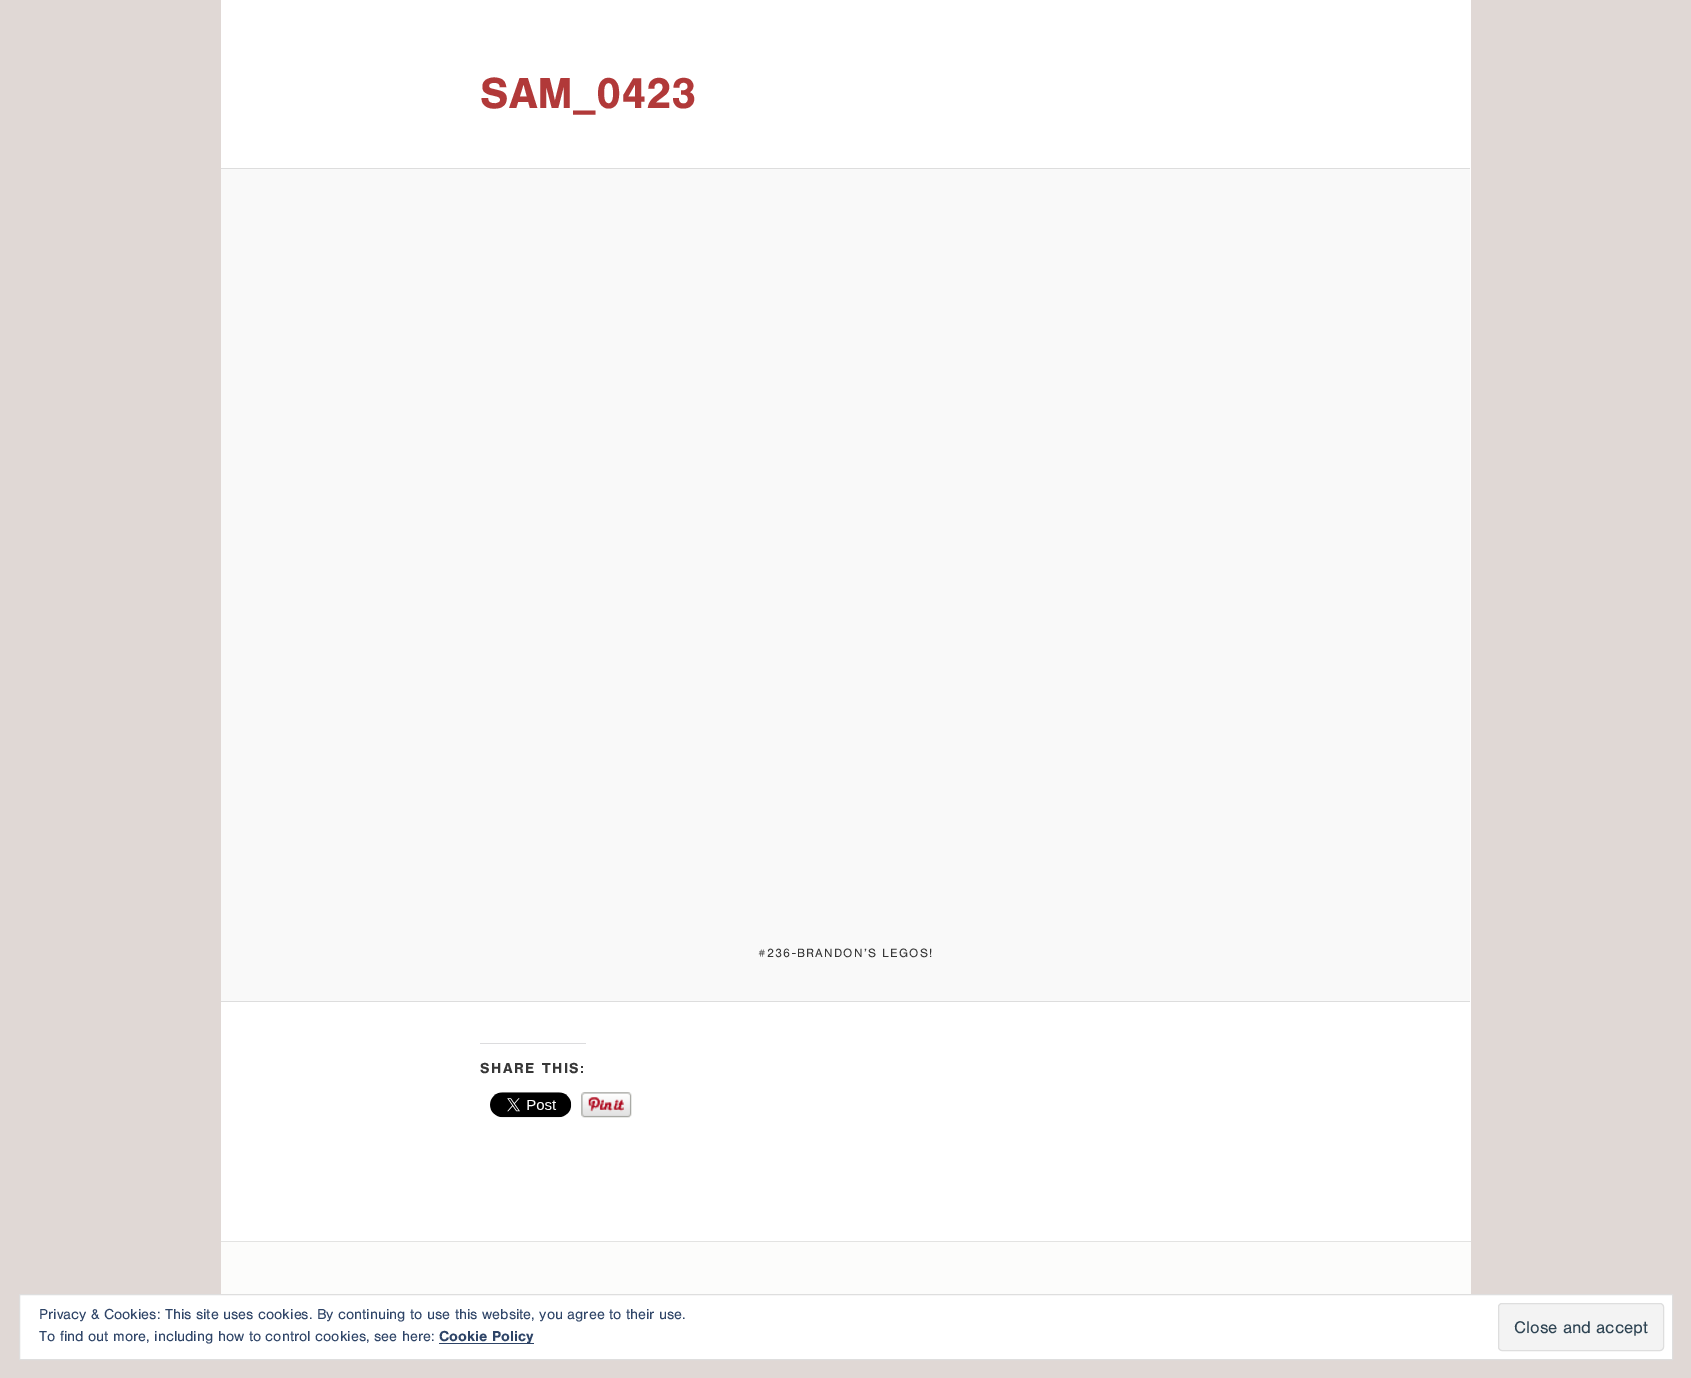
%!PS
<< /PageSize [1691 1378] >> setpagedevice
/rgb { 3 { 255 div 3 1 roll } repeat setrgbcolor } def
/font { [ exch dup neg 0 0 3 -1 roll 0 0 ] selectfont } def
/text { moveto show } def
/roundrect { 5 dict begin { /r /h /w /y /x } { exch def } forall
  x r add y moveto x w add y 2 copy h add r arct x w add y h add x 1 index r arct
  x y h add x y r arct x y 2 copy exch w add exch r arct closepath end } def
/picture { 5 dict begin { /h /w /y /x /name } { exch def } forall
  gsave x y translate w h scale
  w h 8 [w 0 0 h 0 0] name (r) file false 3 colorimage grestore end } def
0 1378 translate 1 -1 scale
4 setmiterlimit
224 216 213 rgb
0 0 1691 1378 rectfill
255 255 255 rgb
221 0 1250 1241 rectfill
249 249 249 rgb
221 169 1249 832 rectfill
221 221 221 rgb
221 168 1249 1 rectfill
221 1001 1249 1 rectfill
220 220 222 rgb
480 1043 106 1 rectfill
(img_01.rgb) 490 1092 82 26 picture
(img_02.rgb) 581 1092 51 26 picture
252 252 251 rgb
221 1242 1250 52 rectfill
227 227 226 rgb
221 1241 1250 1 rectfill
255 255 255 rgb
19.5 1294.5 moveto 1653 0 rlineto 0 65 rlineto -1653 0 rlineto closepath gsave fill grestore
222 222 222 rgb
stroke
46 68 103 rgb
439 1343 95 1 rectfill
243 243 243 rgb
1498.5 1303.5 165 47 3.5 roundrect gsave fill grestore
222 222 222 rgb
stroke
/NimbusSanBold-Bold 45 font
177 57 57 rgb
(SAM_0423) 480 108 text
/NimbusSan-Regular 12.5 font
55 55 55 rgb
758 957 moveto 1.25 0 (#236-BRANDON’S LEGOS!) ashow
/NimbusSanBold-Bold 15 font
480 1073 moveto 1.5 0 (SHARE THIS:) ashow
/NimbusSan-Regular 15 font
46 68 103 rgb
(Privacy & Cookies: This site uses cookies. By continuing to use this website, you agree to their use.) 39 1319 text
(To find out more, including how to control cookies, see here:) 39 1341 text
/NimbusSanBold-Bold 15 font
(Cookie Policy) 439 1341 text
/NimbusSan-Regular 17.5 font
46 68 83 rgb
(Close and accept) 1514 1333 text
showpage
